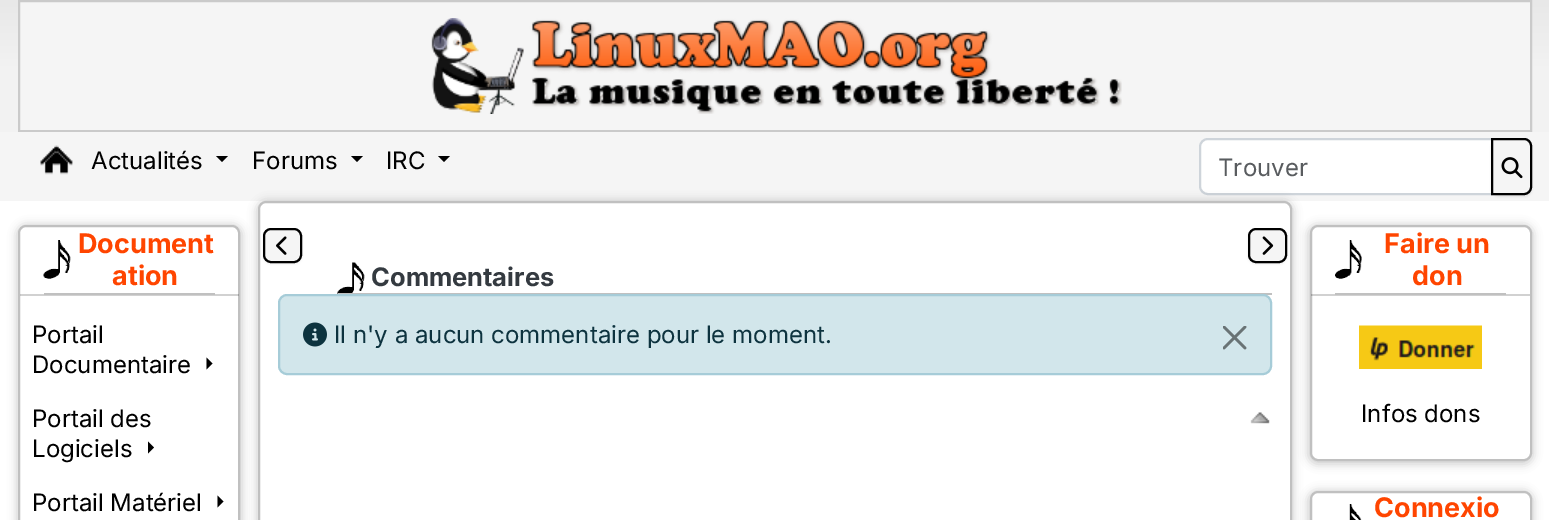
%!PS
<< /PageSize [1549 520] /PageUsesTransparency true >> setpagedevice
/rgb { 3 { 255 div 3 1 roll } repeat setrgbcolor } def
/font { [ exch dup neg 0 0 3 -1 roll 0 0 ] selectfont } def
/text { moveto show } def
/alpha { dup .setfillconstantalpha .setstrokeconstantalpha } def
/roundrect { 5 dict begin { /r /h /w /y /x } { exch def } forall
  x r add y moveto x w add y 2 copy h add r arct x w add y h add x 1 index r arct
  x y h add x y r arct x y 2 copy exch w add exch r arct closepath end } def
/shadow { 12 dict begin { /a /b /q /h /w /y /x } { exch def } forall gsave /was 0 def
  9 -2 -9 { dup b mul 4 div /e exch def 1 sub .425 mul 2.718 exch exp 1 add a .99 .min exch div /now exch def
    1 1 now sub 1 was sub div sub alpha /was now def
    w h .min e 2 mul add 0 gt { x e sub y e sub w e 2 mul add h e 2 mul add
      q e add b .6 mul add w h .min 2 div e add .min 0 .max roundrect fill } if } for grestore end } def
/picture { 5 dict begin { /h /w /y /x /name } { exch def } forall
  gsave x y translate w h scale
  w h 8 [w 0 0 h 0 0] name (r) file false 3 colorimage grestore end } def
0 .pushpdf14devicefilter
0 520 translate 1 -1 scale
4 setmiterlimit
255 255 255 rgb
0 0 1549 520 rectfill
gsave 0 0 moveto 1549 0 rlineto 0 132 rlineto -1549 0 rlineto closepath clip newpath
<< /ShadingType 2 /ColorSpace /DeviceRGB /Coords [775 0 775 132] /Extend [true true] /Function << /FunctionType 3 /Domain [0 1] /Functions [<< /FunctionType 2 /Domain [0 1] /C0 [0.91 0.91 0.91] /C1 [0.949 0.949 0.949] /N 1 >> << /FunctionType 2 /Domain [0 1] /C0 [0.949 0.949 0.949] /C1 [0.949 0.949 0.949] /N 1 >>] /Bounds [0.5] /Encode [0 1 0 1] >> >> shfill grestore
245 245 245 rgb
19 1 moveto 1512 0 rlineto 0 130 rlineto -1512 0 rlineto closepath gsave fill grestore
202 202 202 rgb
2 setlinewidth
stroke
(img_01.rgb) 431 18 691 96 picture
245 245 245 rgb
0 132 1549 69 rectfill
(img_02.rgb) 40 145 33 30 picture
0 0 0 rgb
216 156 moveto 12 0 rlineto -6 6 rlineto closepath fill
351 156 moveto 12 0 rlineto -6 6 rlineto closepath fill
438 156 moveto 12 0 rlineto -6 6 rlineto closepath fill
255 255 255 rgb
1208 139 moveto 284 0 rlineto 0 55 rlineto -284 0 rlineto -4.5 0 -8 -3.5 -8 -8 rcurveto 0 -39 rlineto 0 -4.5 3.5 -8 8 -8 rcurveto closepath gsave fill grestore
206 212 218 rgb
stroke
0 0 0 rgb
1491 140 41 57 8 1 0.07 shadow
245 245 245 rgb
1492 139 moveto 32 0 rlineto 4 0 7 3 7 7 rcurveto 0 41 rlineto 0 4 -3 7 -7 7 rcurveto -32 0 rlineto closepath gsave fill grestore
0 0 0 rgb
stroke
(img_03.rgb) 1501 157 22 22 picture
17 225 225 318 9 4.5 0.2 shadow
255 255 255 rgb
19 226 220 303 7 roundrect gsave fill grestore
192 192 192 rgb
stroke
0.18 alpha
0 0 0 rgb
20 294 219 2 rectfill
1 alpha
(img_04.rgb) 43 240 28 39 picture
192 192 192 rgb
44 293 171 2 rectfill
0 0 0 rgb
206.5 369.5 moveto 0 -12 rlineto 6 6 rlineto closepath fill
148 453.5 moveto 0 -12 rlineto 6 6 rlineto closepath fill
217.5 507.5 moveto 0 -12 rlineto 6 6 rlineto closepath fill
257 201 1036 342 9 4.5 0.2 shadow
255 255 255 rgb
259 202 1032 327 7 roundrect gsave fill grestore
192 192 192 rgb
stroke
0 0 0 rgb
263 230 39 34 8 1 0.07 shadow
245 245 245 rgb
264 229 37 33 7 roundrect gsave fill grestore
0 0 0 rgb
stroke
(img_05.rgb) 276 236 11 19 picture
1248 230 39 34 8 1 0.07 shadow
245 245 245 rgb
1249 229 37 33 7 roundrect gsave fill grestore
0 0 0 rgb
stroke
(img_06.rgb) 1262 236 12 19 picture
(img_07.rgb) 337 262 28 32 picture
192 192 192 rgb
338 293 934 2 rectfill
210 230 235 rgb
279 295 992 79 8 roundrect gsave fill grestore
166 204 216 rgb
stroke
(img_08.rgb) 303 322 24 25 picture
(img_09.rgb) 1223 326 24 24 picture
(img_10.rgb) 1250 412 20 12 picture
0 0 0 rgb
1308 225 225 239 9 4.5 0.2 shadow
255 255 255 rgb
1311 226 220 234 7 roundrect gsave fill grestore
192 192 192 rgb
stroke
0.18 alpha
0 0 0 rgb
1311 294 219 2 rectfill
1 alpha
(img_11.rgb) 1335 240 27 39 picture
192 192 192 rgb
1335 293 171 2 rectfill
(img_12.rgb) 1359 325 123 44 picture
0 0 0 rgb
1308 491 225 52 9 4.5 0.2 shadow
255 255 255 rgb
1311 492 220 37 7 roundrect gsave fill grestore
192 192 192 rgb
stroke
(img_13.rgb) 1349 504 13 16 picture
/Inter-Regular 24 font
0 0 0 rgb
(Actualités) 91 169 text
(Forums) 252 169 text
(IRC) 386 169 text
89 92 95 rgb
(Trouver) 1218 176 text
/Inter-Bold 27 font
255 69 0 rgb
(Document) 78 253 text
(ation) 112 285 text
/Inter-Regular 24 font
0 0 0 rgb
(Portail) 32 343 text
(Documentaire) 32 373 text
(Portail des) 32 427 text
(Logiciels) 32 457 text
(Portail Matériel) 32 511 text
/Inter-Bold 25.5 font
52 58 64 rgb
(Commentaires) 371 286 text
/Inter-Regular 24 font
13 51 63 rgb
(Il n'y a aucun commentaire pour le moment.) 334 343 text
/Inter-Bold 27 font
255 69 0 rgb
(Faire un) 1384 253 text
(don) 1412 285 text
/Inter-Regular 24 font
0 0 0 rgb
(Infos dons) 1361 422 text
/Inter-Bold 27 font
255 69 0 rgb
(Connexio) 1374 517 text
.poppdf14devicefilter showpage
